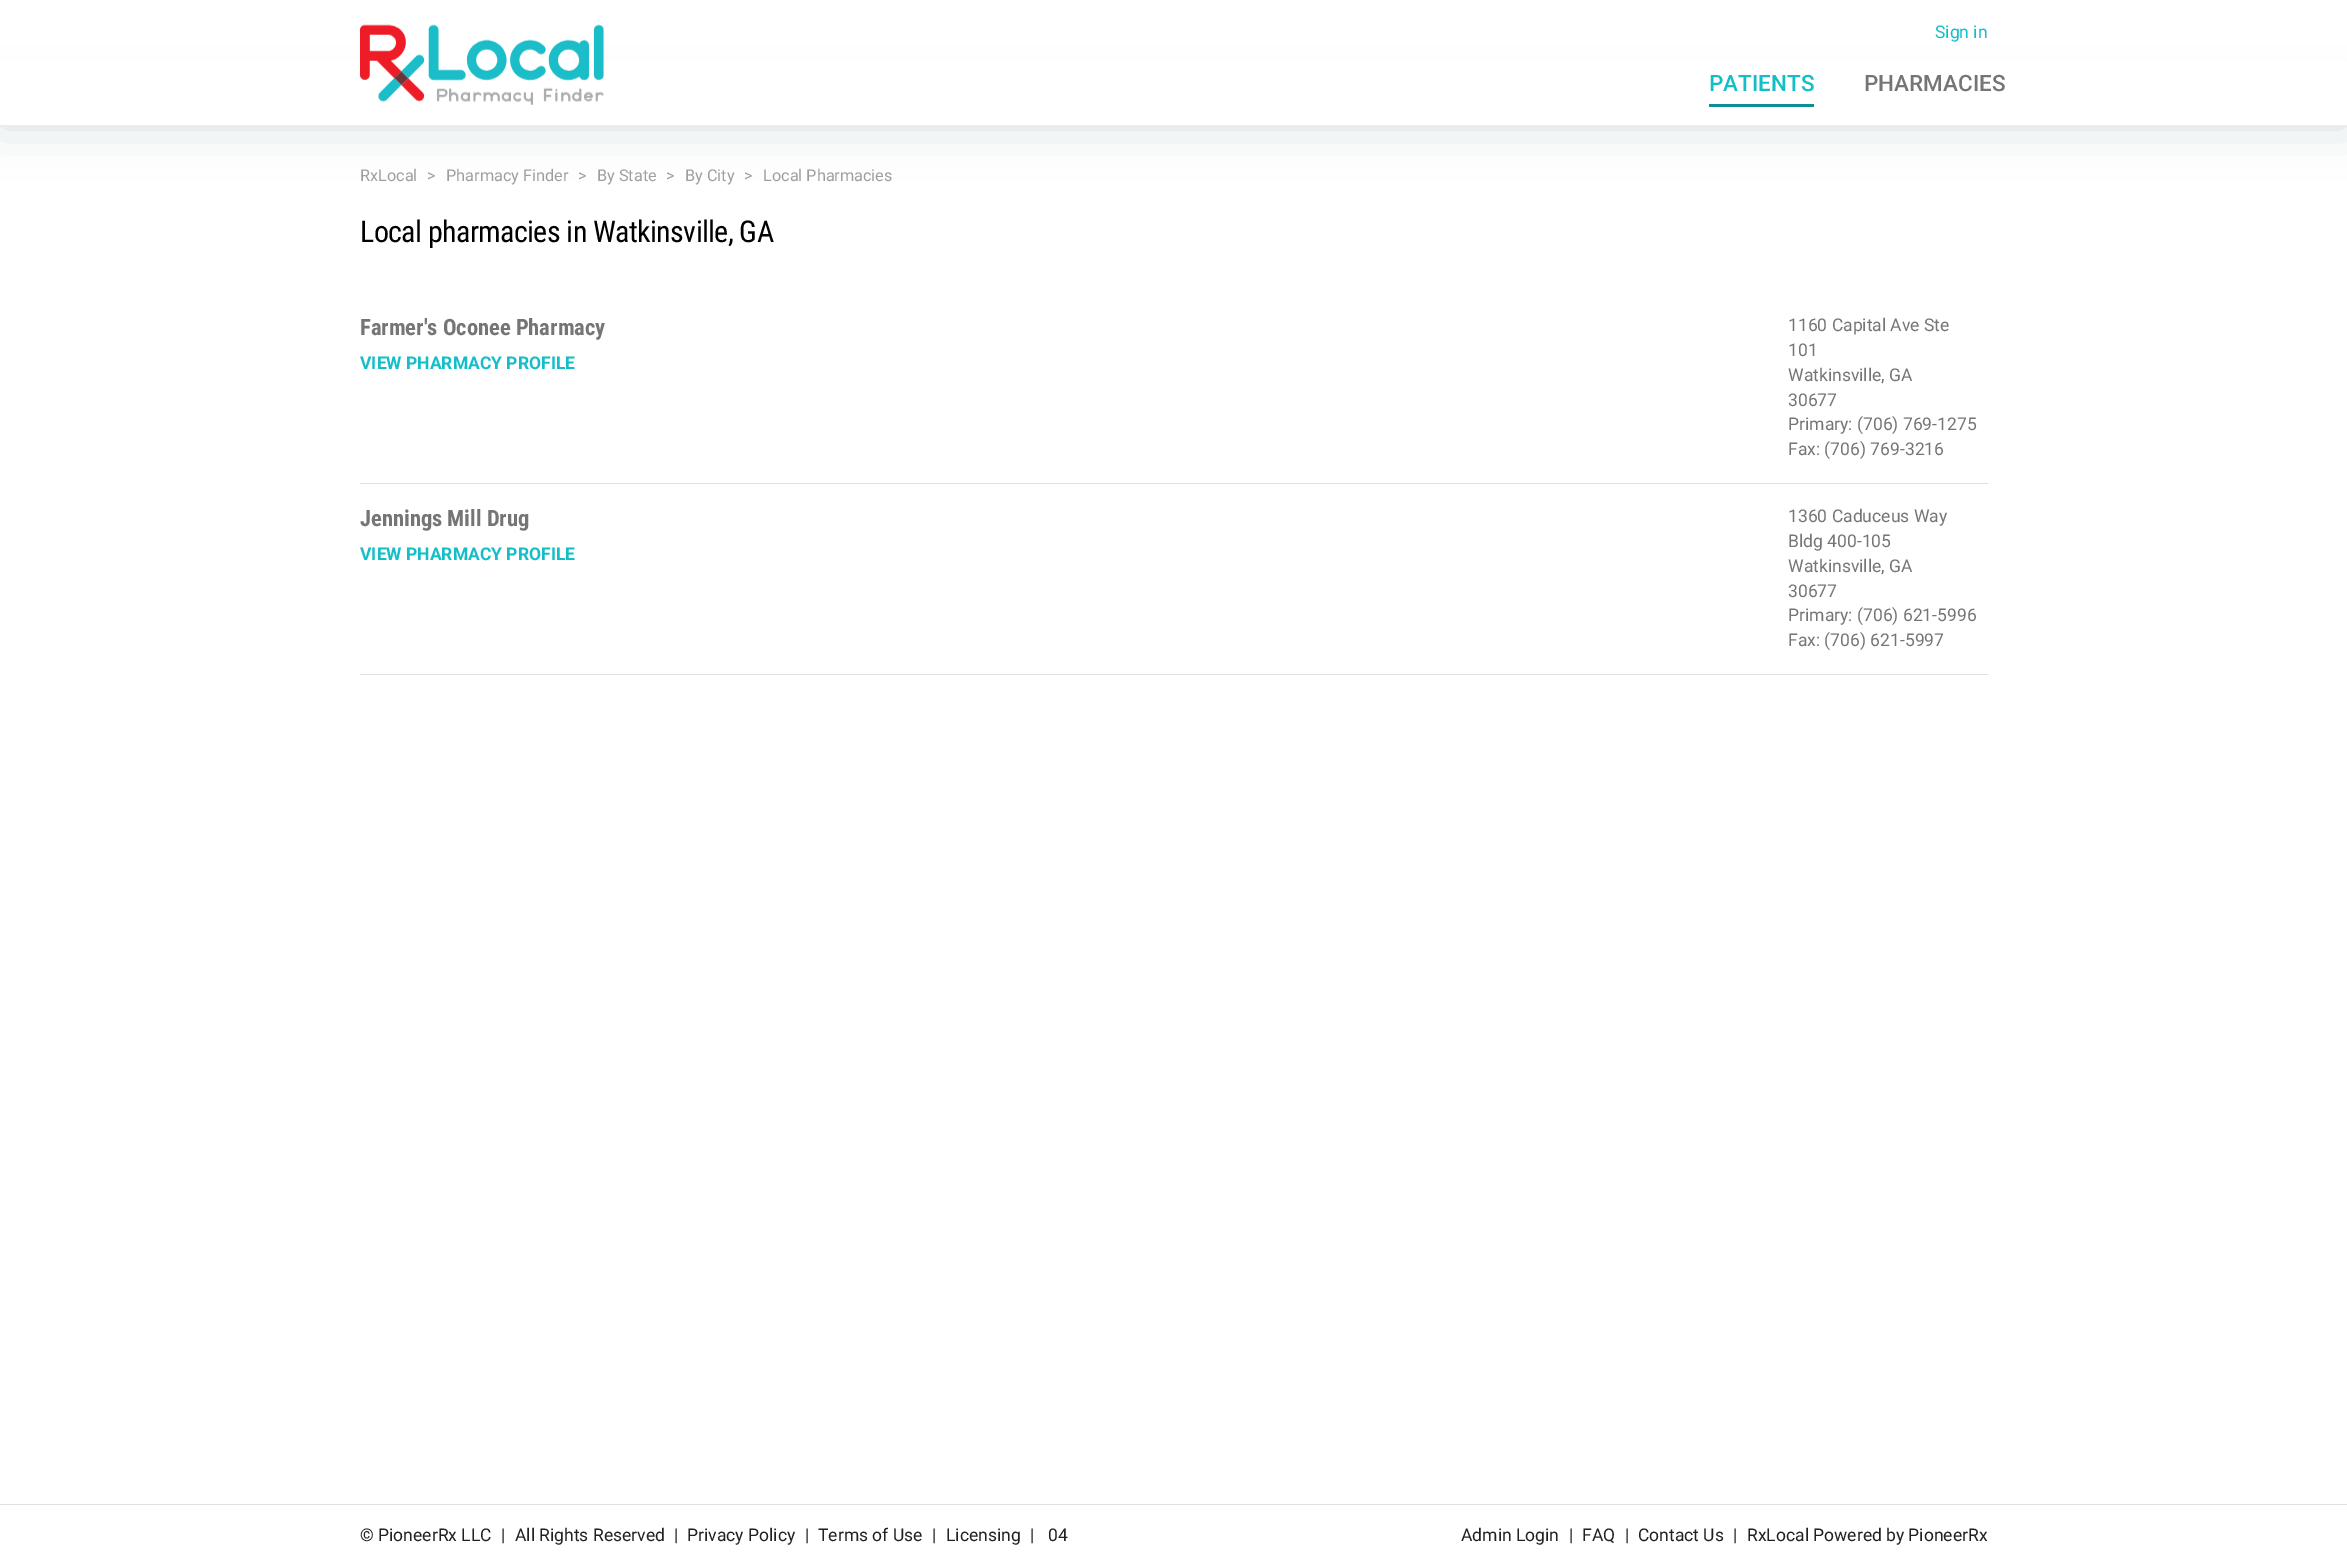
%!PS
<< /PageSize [2347 1568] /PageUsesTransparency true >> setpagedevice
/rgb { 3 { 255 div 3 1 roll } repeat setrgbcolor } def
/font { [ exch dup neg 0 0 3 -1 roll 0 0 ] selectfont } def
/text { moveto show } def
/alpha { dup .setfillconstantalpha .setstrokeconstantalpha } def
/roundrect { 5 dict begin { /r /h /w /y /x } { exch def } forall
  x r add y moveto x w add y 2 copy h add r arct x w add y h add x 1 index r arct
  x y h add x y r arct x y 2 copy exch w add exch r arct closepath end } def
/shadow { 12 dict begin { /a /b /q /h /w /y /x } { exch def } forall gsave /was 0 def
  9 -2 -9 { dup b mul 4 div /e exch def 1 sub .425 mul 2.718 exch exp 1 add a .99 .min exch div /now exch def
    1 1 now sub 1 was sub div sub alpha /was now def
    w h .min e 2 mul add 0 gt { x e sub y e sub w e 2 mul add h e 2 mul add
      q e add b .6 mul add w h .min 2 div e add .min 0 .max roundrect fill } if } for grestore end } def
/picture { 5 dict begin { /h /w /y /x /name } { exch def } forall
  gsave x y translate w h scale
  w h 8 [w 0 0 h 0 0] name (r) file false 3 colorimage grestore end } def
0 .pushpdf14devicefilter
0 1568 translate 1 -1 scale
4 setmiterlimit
255 255 255 rgb
0 0 2347 1568 rectfill
208 220 220 rgb
0 100 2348 25 0 25 1 shadow
255 255 255 rgb
0 61 2347 64 rectfill
(img_01.rgb) 360 24 244 81 picture
15 142 149 rgb
1709 104 105 3 rectfill
224 224 224 rgb
360 483 1628 1 rectfill
360 674 1628 1 rectfill
0 1504 2347 1 rectfill
/Roboto-Regular 17.5 font
20 190 200 rgb
(Sign in) 1935 38 text
/Roboto-Medium 22.5 font
(PATIENTS) 1709 91 text
117 117 117 rgb
(PHARMACIES) 1864 91 text
/Roboto-Regular 16.25 font
158 158 158 rgb
(RxLocal) 360 181 text
(>) 427 181 text
(Pharmacy Finder) 446 181 text
(>) 578 181 text
(By State) 597 181 text
(>) 666 181 text
(By City) 685 181 text
(>) 744 181 text
(Local Pharmacies) 763 181 text
/RobotoCondensed-Regular 30 font
0 0 0 rgb
360 242 moveto -0.6 0 (Local pharmacies in Watkinsville, GA) ashow
/RobotoCondensed-Bold 22.5 font
117 117 117 rgb
(Farmer's Oconee Pharmacy) 360 335 text
/Roboto-Bold 17.5 font
20 190 200 rgb
(VIEW PHARMACY PROFILE) 360 369 text
/Roboto-Regular 17.5 font
117 117 117 rgb
(1160 Capital Ave Ste) 1788 331 text
(101) 1788 356 text
(Watkinsville, GA) 1788 381 text
(30677) 1788 406 text
(Primary: \(706\) 769-1275) 1788 430 text
(Fax: \(706\) 769-3216) 1788 455 text
/RobotoCondensed-Bold 22.5 font
(Jennings Mill Drug) 360 526 text
/Roboto-Bold 17.5 font
20 190 200 rgb
(VIEW PHARMACY PROFILE) 360 560 text
/Roboto-Regular 17.5 font
117 117 117 rgb
(1360 Caduceus Way) 1788 522 text
(Bldg 400-105) 1788 547 text
(Watkinsville, GA) 1788 572 text
(30677) 1788 597 text
(Primary: \(706\) 621-5996) 1788 621 text
(Fax: \(706\) 621-5997) 1788 646 text
33 33 33 rgb
(© PioneerRx LLC) 360 1541 text
(|) 501 1541 text
(All Rights Reserved) 515 1541 text
(|) 674 1541 text
(Privacy Policy) 687 1541 text
(|) 805 1541 text
(Terms of Use) 818 1541 text
(|) 932 1541 text
(Licensing) 946 1541 text
(|) 1030 1541 text
(04) 1048 1541 text
(Admin Login) 1461 1541 text
(|) 1569 1541 text
(FAQ) 1582 1541 text
(|) 1625 1541 text
(Contact Us) 1638 1541 text
(|) 1733 1541 text
(RxLocal Powered by PioneerRx) 1747 1541 text
.poppdf14devicefilter showpage
